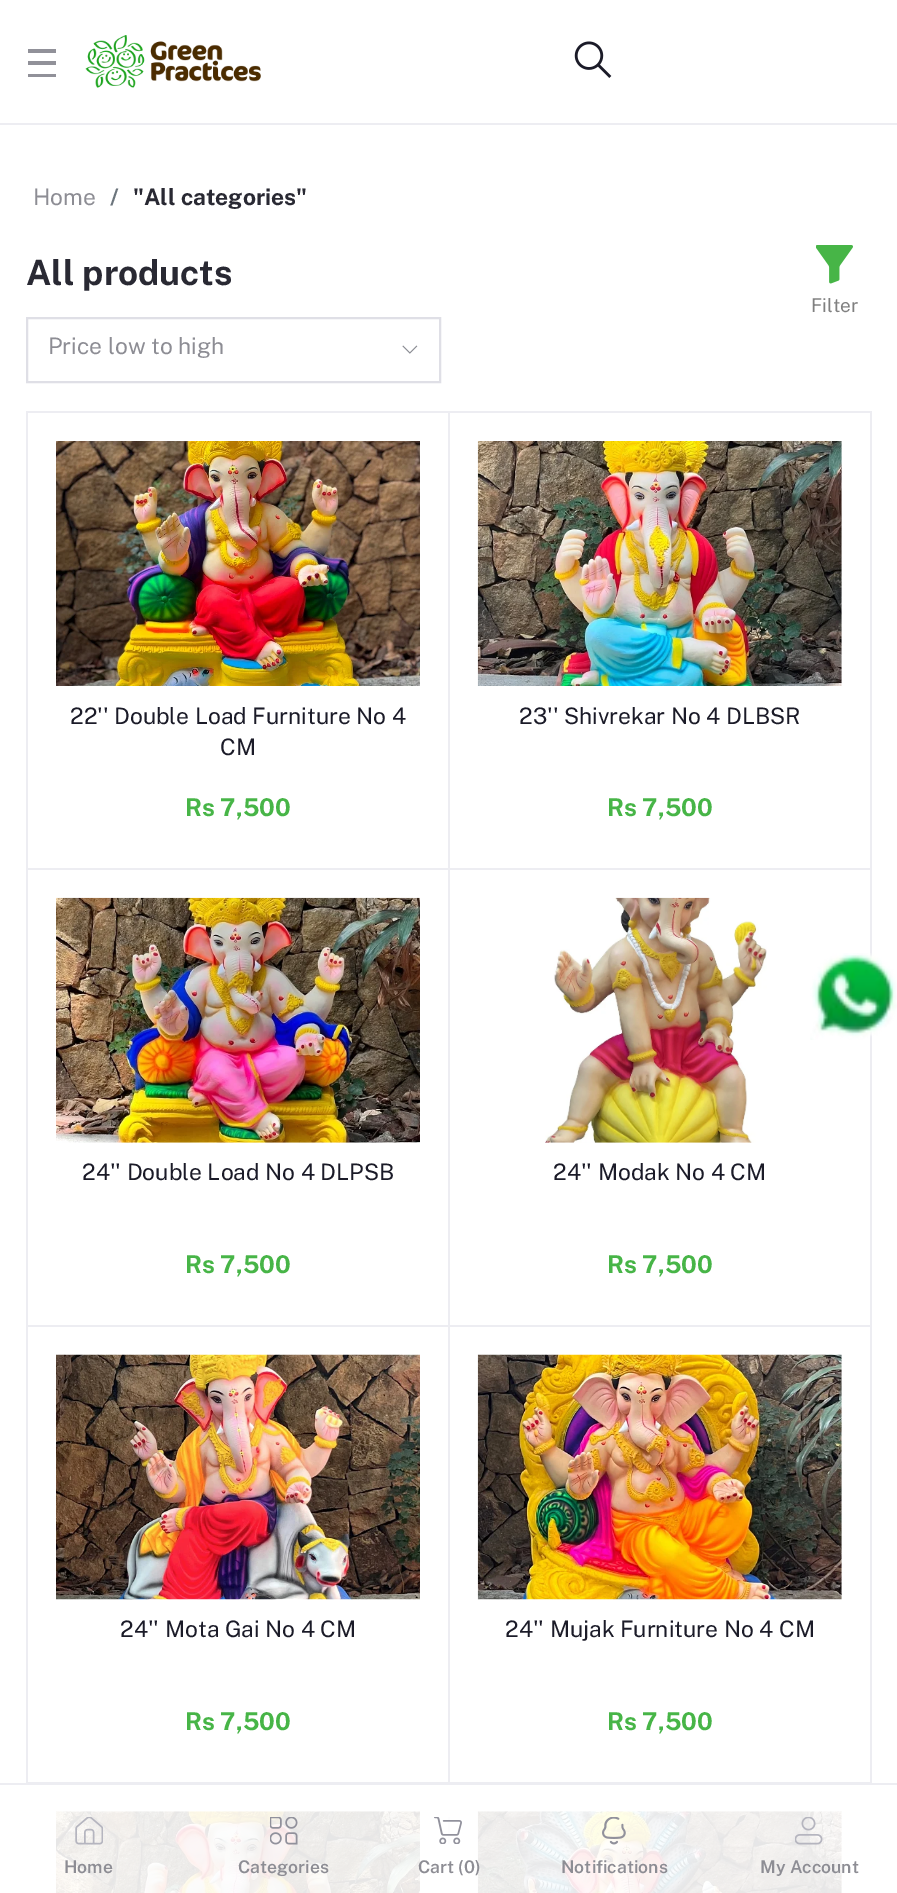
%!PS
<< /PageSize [897 1893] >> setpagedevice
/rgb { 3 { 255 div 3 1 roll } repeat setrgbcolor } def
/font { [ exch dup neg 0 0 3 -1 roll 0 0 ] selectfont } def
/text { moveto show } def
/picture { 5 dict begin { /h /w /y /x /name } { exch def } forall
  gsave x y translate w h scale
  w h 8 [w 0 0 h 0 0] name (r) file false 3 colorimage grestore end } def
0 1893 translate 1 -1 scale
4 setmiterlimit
255 255 255 rgb
0 0 897 1893 rectfill
237 237 242 rgb
0 123 897 2 rectfill
145 145 153 rgb
28 49 28 4 rectfill
28 61 28 4 rectfill
28 74 28 3 rectfill
(img_01.rgb) 85 35 176 53 picture
(img_02.rgb) 574 41 38 37 picture
(img_03.rgb) 816 245 37 39 picture
223 223 230 rgb
2 setlinewidth
27 318 413 64 rectstroke
(img_04.rgb) 402 345 16 9 picture
237 237 242 rgb
26 411 846 2 rectfill
26 411 2 1372 rectfill
448 413 2 1370 rectfill
28 868 422 2 rectfill
(img_05.rgb) 56 441 364 245 picture
870 413 2 1370 rectfill
450 868 422 2 rectfill
(img_06.rgb) 477 441 365 245 picture
28 1325 844 2 rectfill
(img_07.rgb) 56 897 364 246 picture
(img_08.rgb) 545 897 222 246 picture
28 1782 844 1 rectfill
(img_09.rgb) 56 1354 364 246 picture
(img_10.rgb) 477 1354 365 246 picture
(img_11.rgb) 56 1811 364 82 picture
(img_12.rgb) 477 1811 365 82 picture
0 1783 897 2 rectfill
(img_13.rgb) 75 1817 28 28 picture
(img_14.rgb) 270 1817 28 28 picture
(img_15.rgb) 434 1817 28 27 picture
(img_16.rgb) 602 1817 24 28 picture
(img_17.rgb) 795 1817 28 28 picture
(img_18.rgb) 810 953 87 87 picture
/PublicSans-Regular 22.75 font
141 141 148 rgb
(Home) 33 205 text
/PublicSans-Bold 22.75 font
108 117 125 rgb
(/) 110 205 text
41 41 51 rgb
("All categories") 133 205 text
/PublicSans-Bold 35 font
(All products) 26 285 text
/PublicSans-Regular 19 font
128 128 128 rgb
(Filter) 811 312 text
/PublicSans-Regular 22.75 font
141 141 148 rgb
(Price low to high) 48 354 text
27 27 40 rgb
(22'' Double Load Furniture No 4) 70 724 text
(CM) 220 755 text
/PublicSans-Bold 24.5 font
71 181 71 rgb
(Rs 7,500) 185 816 text
/PublicSans-Regular 22.75 font
27 27 40 rgb
(23'' Shivrekar No 4 DLBSR) 519 724 text
/PublicSans-Bold 24.5 font
71 181 71 rgb
(Rs 7,500) 607 816 text
/PublicSans-Regular 22.75 font
27 27 40 rgb
(24'' Double Load No 4 DLPSB) 82 1180 text
/PublicSans-Bold 24.5 font
71 181 71 rgb
(Rs 7,500) 185 1273 text
/PublicSans-Regular 22.75 font
27 27 40 rgb
(24'' Modak No 4 CM) 553 1180 text
/PublicSans-Bold 24.5 font
71 181 71 rgb
(Rs 7,500) 607 1273 text
/PublicSans-Regular 22.75 font
27 27 40 rgb
(24'' Mota Gai No 4 CM) 120 1637 text
/PublicSans-Bold 24.5 font
71 181 71 rgb
(Rs 7,500) 185 1730 text
/PublicSans-Regular 22.75 font
27 27 40 rgb
(24'' Mujak Furniture No 4 CM) 505 1637 text
/PublicSans-Bold 24.5 font
71 181 71 rgb
(Rs 7,500) 607 1730 text
/PublicSans-SemiBold 17.5 font
141 141 148 rgb
(Home) 64 1873 text
(Categories) 238 1873 text
(Cart \(0\)) 418 1873 text
(Notifications) 561 1873 text
(My Account) 760 1873 text
showpage
